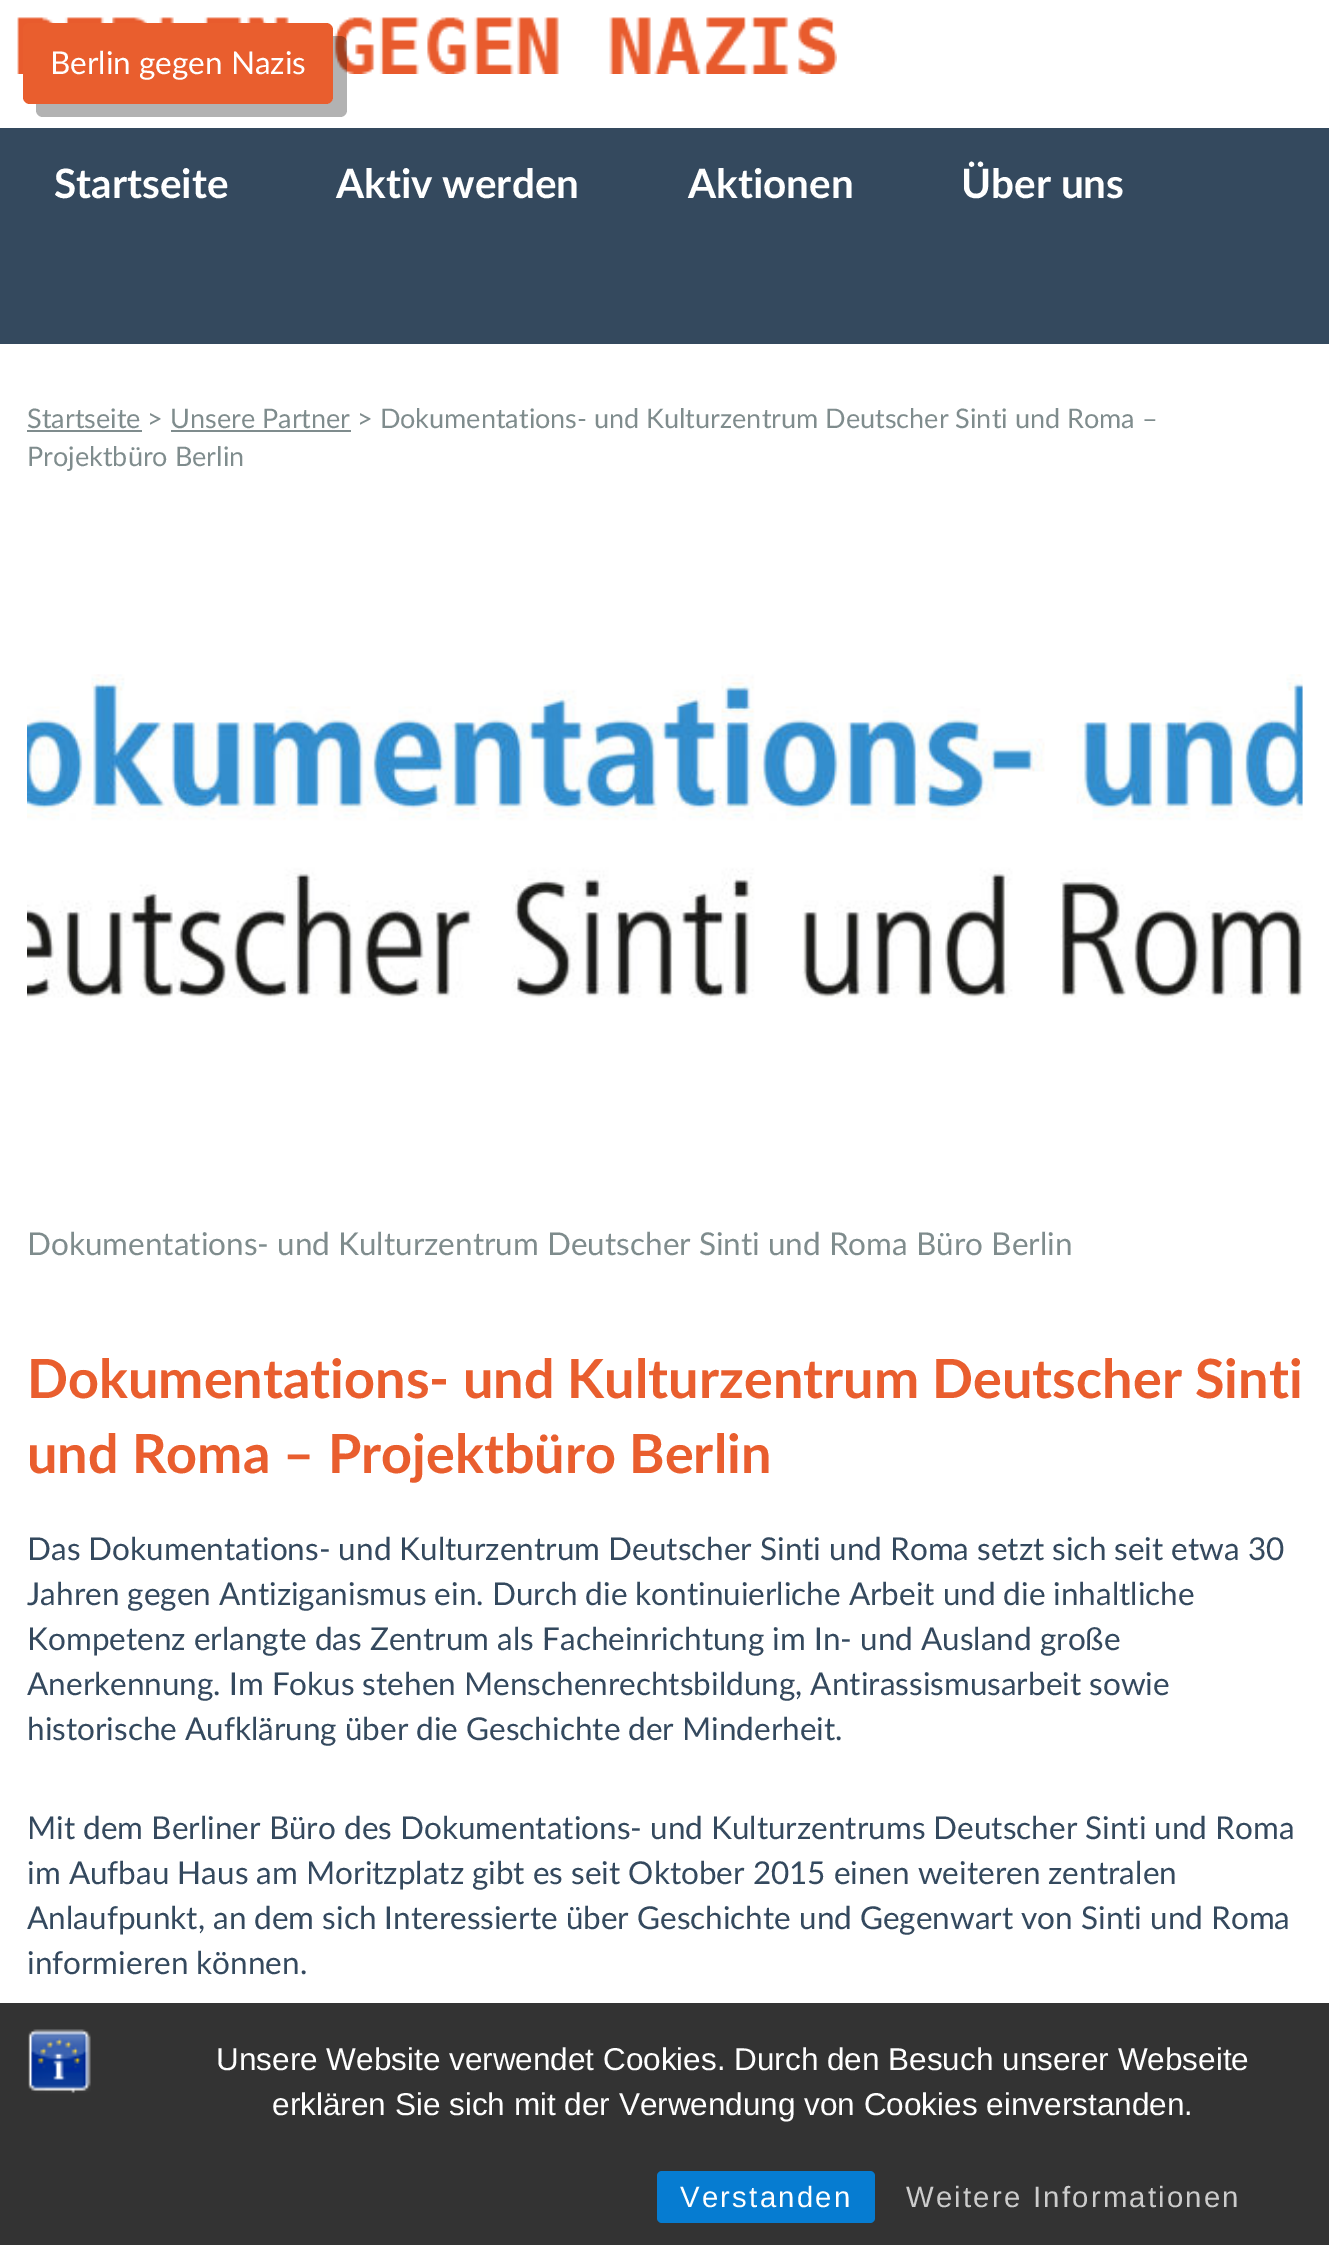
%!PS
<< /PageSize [1329 2245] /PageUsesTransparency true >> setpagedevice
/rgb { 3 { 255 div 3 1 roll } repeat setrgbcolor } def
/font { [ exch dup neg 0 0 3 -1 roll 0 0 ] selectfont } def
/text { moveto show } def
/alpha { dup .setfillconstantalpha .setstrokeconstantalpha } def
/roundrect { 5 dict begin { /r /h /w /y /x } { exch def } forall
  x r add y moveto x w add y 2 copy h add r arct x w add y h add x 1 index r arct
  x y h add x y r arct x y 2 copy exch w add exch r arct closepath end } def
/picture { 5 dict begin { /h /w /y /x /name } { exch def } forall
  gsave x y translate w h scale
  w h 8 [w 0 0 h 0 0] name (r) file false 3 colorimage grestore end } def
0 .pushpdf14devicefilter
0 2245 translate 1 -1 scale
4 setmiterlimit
255 255 255 rgb
0 0 1329 2245 rectfill
(img_01.rgb) 17 17 820 57 picture
0.3 alpha
0 0 0 rgb
36 104 moveto 0 6 rlineto 0 4 3 7 7 7 rcurveto 297 0 rlineto 4 0 7 -3 7 -7 rcurveto 0 -67 rlineto 0 -4 -3 -7 -7 -7 rcurveto -7 0 rlineto 0 61 rlineto 0 3 -3 7 -7 7 rcurveto closepath fill
1 alpha
233 94 46 rgb
23 23 310 81 7 roundrect fill
52 73 94 rgb
0 128 1329 216 rectfill
127 140 141 rgb
27 430 115 2 rectfill
171 430 180 2 rectfill
(img_02.rgb) 27 674 1276 324 picture
51 51 51 rgb
0 2003 1329 242 rectfill
(img_03.rgb) 28 2029 63 65 picture
6 124 209 rgb
657 2171 218 52 5 roundrect fill
/Lato-Regular 31.5 font
255 255 255 rgb
(Berlin gegen Nazis) 50 74 text
/Lato-Bold 40.5 font
(Startseite) 54 198 text
(Aktiv werden) 336 198 text
(Aktionen) 688 198 text
(Über uns) 961 198 text
/Lato-Regular 27 font
127 140 141 rgb
(Startseite > Unsere Partner > Dokumentations- und Kulturzentrum Deutscher Sinti und Roma –) 27 428 text
(Projektbüro Berlin) 27 466 text
/Lato-Regular 31.5 font
(Dokumentations- und Kulturzentrum Deutscher Sinti und Roma Büro Berlin) 27 1255 text
/Lato-Bold 54 font
233 94 46 rgb
(Dokumentations- und Kulturzentrum Deutscher Sinti) 27 1398 text
(und Roma – Projektbüro Berlin) 27 1473 text
/Lato-Regular 31.5 font
52 73 94 rgb
(Das Dokumentations- und Kulturzentrum Deutscher Sinti und Roma setzt sich seit etwa 30) 27 1560 text
(Jahren gegen Antiziganismus ein. Durch die kontinuierliche Arbeit und die inhaltliche) 27 1605 text
(Kompetenz erlangte das Zentrum als Facheinrichtung im In- und Ausland große) 27 1650 text
(Anerkennung. Im Fokus stehen Menschenrechtsbildung, Antirassismusarbeit sowie) 27 1695 text
(historische Aufklärung über die Geschichte der Minderheit.) 27 1740 text
(Mit dem Berliner Büro des Dokumentations- und Kulturzentrums Deutscher Sinti und Roma) 27 1839 text
(im Aufbau Haus am Moritzplatz gibt es seit Oktober 2015 einen weiteren zentralen) 27 1884 text
(Anlaufpunkt, an dem sich Interessierte über Geschichte und Gegenwart von Sinti und Roma) 27 1929 text
(informieren können.) 27 1974 text
/LiberationSans-Regular 31.5 font
255 255 255 rgb
(Unsere Website verwendet Cookies. Durch den Besuch unserer Webseite) 216 2070 text
(erklären Sie sich mit der Verwendung von Cookies einverstanden.) 272 2115 text
/LiberationSans-Regular 29.25 font
680 2207 moveto 2.25 0 (Verstanden) ashow
204 204 204 rgb
906 2207 moveto 2.25 0 (Weitere Informationen) ashow
.poppdf14devicefilter showpage
